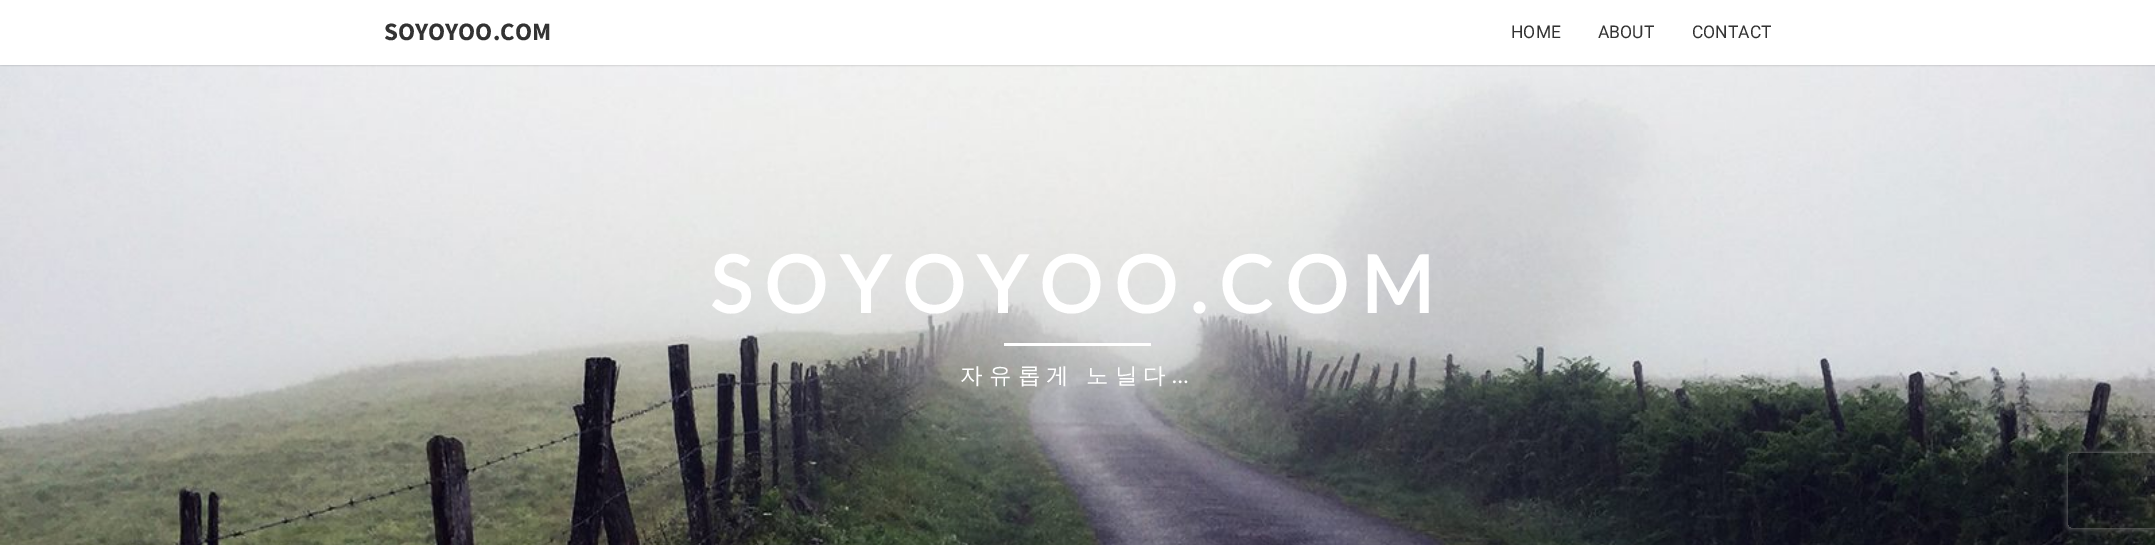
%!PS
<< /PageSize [2155 545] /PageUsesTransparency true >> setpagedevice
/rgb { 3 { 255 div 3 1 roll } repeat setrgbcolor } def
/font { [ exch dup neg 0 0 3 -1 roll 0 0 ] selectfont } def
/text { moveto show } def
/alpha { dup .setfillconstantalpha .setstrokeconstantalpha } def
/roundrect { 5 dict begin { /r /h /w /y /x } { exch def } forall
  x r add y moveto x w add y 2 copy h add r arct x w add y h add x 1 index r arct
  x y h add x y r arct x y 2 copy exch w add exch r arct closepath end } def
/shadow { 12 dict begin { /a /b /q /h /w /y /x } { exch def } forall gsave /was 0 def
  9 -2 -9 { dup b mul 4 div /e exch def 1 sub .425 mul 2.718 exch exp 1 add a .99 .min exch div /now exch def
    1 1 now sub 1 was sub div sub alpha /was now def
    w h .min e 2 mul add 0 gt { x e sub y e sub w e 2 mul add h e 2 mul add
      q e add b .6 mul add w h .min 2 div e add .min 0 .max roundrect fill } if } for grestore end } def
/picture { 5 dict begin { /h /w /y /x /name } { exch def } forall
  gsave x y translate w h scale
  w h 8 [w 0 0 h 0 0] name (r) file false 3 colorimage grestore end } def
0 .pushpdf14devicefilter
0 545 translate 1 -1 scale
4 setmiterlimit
255 255 255 rgb
0 0 2155 545 rectfill
(img_01.rgb) 0 65 2155 480 picture
100 100 100 rgb
0 1 2155 65 0 0.5 0.2 shadow
255 255 255 rgb
0 0 2155 65 rectfill
1004 343 147 3 rectfill
gsave
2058 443 moveto 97 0 rlineto 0 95 rlineto -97 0 rlineto closepath 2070.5 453 moveto 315 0 rlineto 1.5 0 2.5 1 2.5 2.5 rcurveto 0 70 rlineto 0 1.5 -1 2.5 -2.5 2.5 rcurveto -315 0 rlineto -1.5 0 -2.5 -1 -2.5 -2.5 rcurveto 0 -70 rlineto 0 -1.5 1 -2.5 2.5 -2.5 rcurveto closepath eoclip newpath
128 128 128 rgb
2068 453 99 75 2.5 3 1 shadow
grestore
/SourceSansPro-Bold 25 font
51 51 51 rgb
(SOYOYOO.COM) 384 40 text
/Roboto-Regular 17.5 font
(HOME) 1511 38 text
(ABOUT) 1598 38 text
(CONTACT) 1692 38 text
/Lato-Bold 78.75 font
255 255 255 rgb
710 313 moveto 12.5 0 (SOYOYOO.COM) ashow
/WenQuanYiZenHei-Medium 22.5 font
960 383 moveto -2 0 32 6.25 0 (자유롭게 노닐다) awidthshow
/Lato-Regular 22.5 font
1172 383 moveto 6.25 0 (…) ashow
.poppdf14devicefilter showpage
